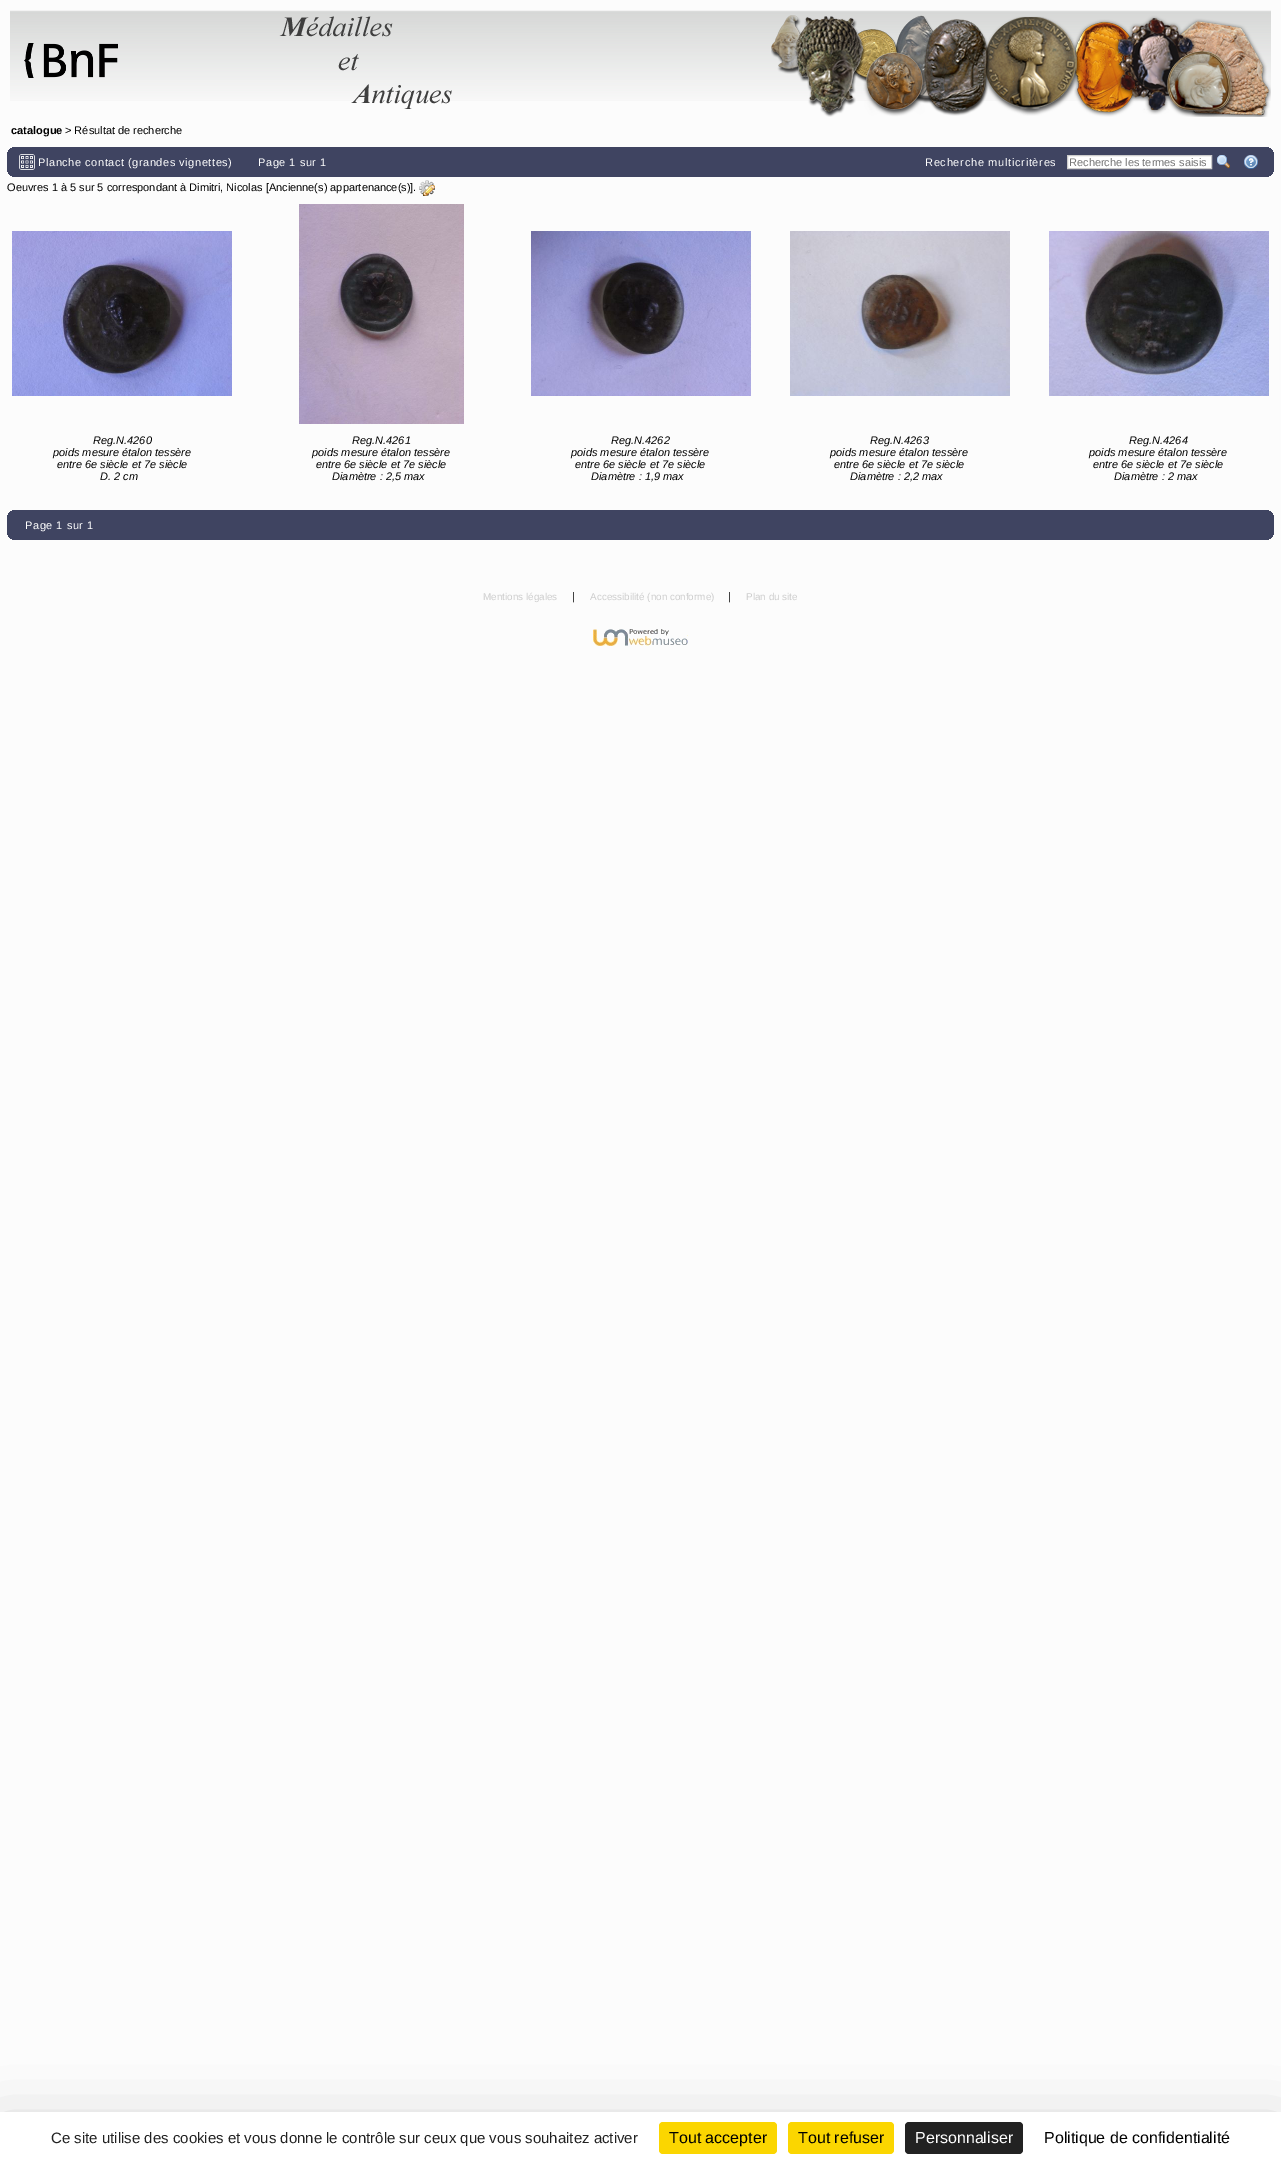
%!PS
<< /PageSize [1281 2164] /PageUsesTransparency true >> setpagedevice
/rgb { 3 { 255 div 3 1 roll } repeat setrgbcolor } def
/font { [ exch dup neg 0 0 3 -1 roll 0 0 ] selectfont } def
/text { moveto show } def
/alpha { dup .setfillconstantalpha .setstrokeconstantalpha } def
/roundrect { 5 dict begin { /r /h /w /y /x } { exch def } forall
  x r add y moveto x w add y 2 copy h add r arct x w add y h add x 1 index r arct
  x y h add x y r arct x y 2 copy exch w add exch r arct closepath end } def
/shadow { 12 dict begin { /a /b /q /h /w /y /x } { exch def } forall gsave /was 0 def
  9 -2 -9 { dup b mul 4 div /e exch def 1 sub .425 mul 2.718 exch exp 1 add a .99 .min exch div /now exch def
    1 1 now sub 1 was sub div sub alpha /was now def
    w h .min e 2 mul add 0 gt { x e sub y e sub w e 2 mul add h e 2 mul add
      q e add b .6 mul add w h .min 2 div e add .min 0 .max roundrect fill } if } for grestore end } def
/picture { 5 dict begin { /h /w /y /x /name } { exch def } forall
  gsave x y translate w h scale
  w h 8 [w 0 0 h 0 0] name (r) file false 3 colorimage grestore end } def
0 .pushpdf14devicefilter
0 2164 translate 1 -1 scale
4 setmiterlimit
252 252 252 rgb
0 0 1281 2164 rectfill
(img_01.rgb) 10 10 1261 91 picture
(img_02.rgb) 24 16 428 93 picture
(img_03.rgb) 771 15 500 102 picture
63 68 97 rgb
7 147 1267 30 rectfill
(img_04.rgb) 7 147 5 5 picture
(img_05.rgb) 1269 147 5 5 picture
(img_06.rgb) 7 172 5 5 picture
(img_07.rgb) 19 154 16 16 picture
(img_08.rgb) 1269 172 5 5 picture
255 255 255 rgb
1067.5 155.5 moveto 144 0 rlineto 0 13 rlineto -144 0 rlineto closepath gsave fill grestore
204 204 204 rgb
stroke
(img_09.rgb) 1217 155 13 14 picture
(img_10.rgb) 1244 155 14 14 picture
(img_11.rgb) 419 180 16 16 picture
(img_12.rgb) 12 231 220 165 picture
(img_13.rgb) 299 204 165 220 picture
(img_14.rgb) 531 231 220 165 picture
(img_15.rgb) 790 231 220 165 picture
(img_16.rgb) 1049 231 220 165 picture
63 68 97 rgb
7 510 1267 30 rectfill
(img_04.rgb) 7 510 5 5 picture
(img_05.rgb) 1269 510 5 5 picture
(img_06.rgb) 7 535 5 5 picture
(img_08.rgb) 1269 535 5 5 picture
(img_17.rgb) 593 629 95 17 picture
0 0 0 rgb
0 2132 1281 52 0 30 0.25 shadow
255 255 255 rgb
0 2112 1281 52 rectfill
251 214 0 rgb
659 2122 118 32 4 roundrect fill
788 2122 106 32 4 roundrect fill
34 34 34 rgb
905 2122 118 32 4 roundrect fill
/LiberationSans-Bold 11 font
0 0 0 rgb
(catalogue) 11 134 text
/LiberationSans-Regular 11 font
(> Résultat de recherche) 65 134 text
255 255 255 rgb
38 166 moveto 0.55 0 (Planche contact \(grandes vignettes\)) ashow
258 166 moveto 0.55 0 (Page 1 sur 1) ashow
925 166 moveto 0.7 0 (Recherche multicritères) ashow
117 117 117 rgb
(Recherche les termes saisis) 1069 166 text
0 0 0 rgb
(Oeuvres 1 à 5 sur 5 correspondant à Dimitri, Nicolas [Ancienne\(s\) appartenance\(s\)].) 7 191 text
/LiberationSans-Italic 11 font
(Reg.N.4260) 93 444 text
(poids mesure étalon tessère) 53 456 text
(entre 6e siècle et 7e siècle) 57 468 text
(D. 2 cm) 100 480 text
(Reg.N.4261) 352 444 text
(poids mesure étalon tessère) 312 456 text
(entre 6e siècle et 7e siècle) 316 468 text
(Diamètre : 2,5 max) 332 480 text
(Reg.N.4262) 611 444 text
(poids mesure étalon tessère) 571 456 text
(entre 6e siècle et 7e siècle) 575 468 text
(Diamètre : 1,9 max) 591 480 text
(Reg.N.4263) 870 444 text
(poids mesure étalon tessère) 830 456 text
(entre 6e siècle et 7e siècle) 834 468 text
(Diamètre : 2,2 max) 850 480 text
(Reg.N.4264) 1129 444 text
(poids mesure étalon tessère) 1089 456 text
(entre 6e siècle et 7e siècle) 1093 468 text
(Diamètre : 2 max) 1114 480 text
/LiberationSans-Regular 11 font
255 255 255 rgb
25 529 moveto 0.55 0 (Page 1 sur 1) ashow
/LiberationSans-Regular 9.9 font
204 204 204 rgb
(Mentions légales) 483 600 text
/LiberationSans-Regular 11 font
0 0 0 rgb
(|) 572 600 text
/LiberationSans-Regular 9.9 font
204 204 204 rgb
(Accessibilité \(non conforme\)) 590 600 text
/LiberationSans-Regular 11 font
0 0 0 rgb
(|) 728 600 text
/LiberationSans-Regular 9.9 font
204 204 204 rgb
(Plan du site) 746 600 text
/LiberationSans-Regular 15 font
34 34 34 rgb
(Ce site utilise des cookies et vous donne le contrôle sur ceux que vous souhaitez activer) 51 2143 text
/LiberationSans-Regular 16 font
0 0 0 rgb
(Tout accepter) 669 2143 text
(Tout refuser) 798 2143 text
255 255 255 rgb
(Personnaliser) 915 2143 text
0 0 0 rgb
(Politique de confidentialité) 1044 2143 text
.poppdf14devicefilter showpage
